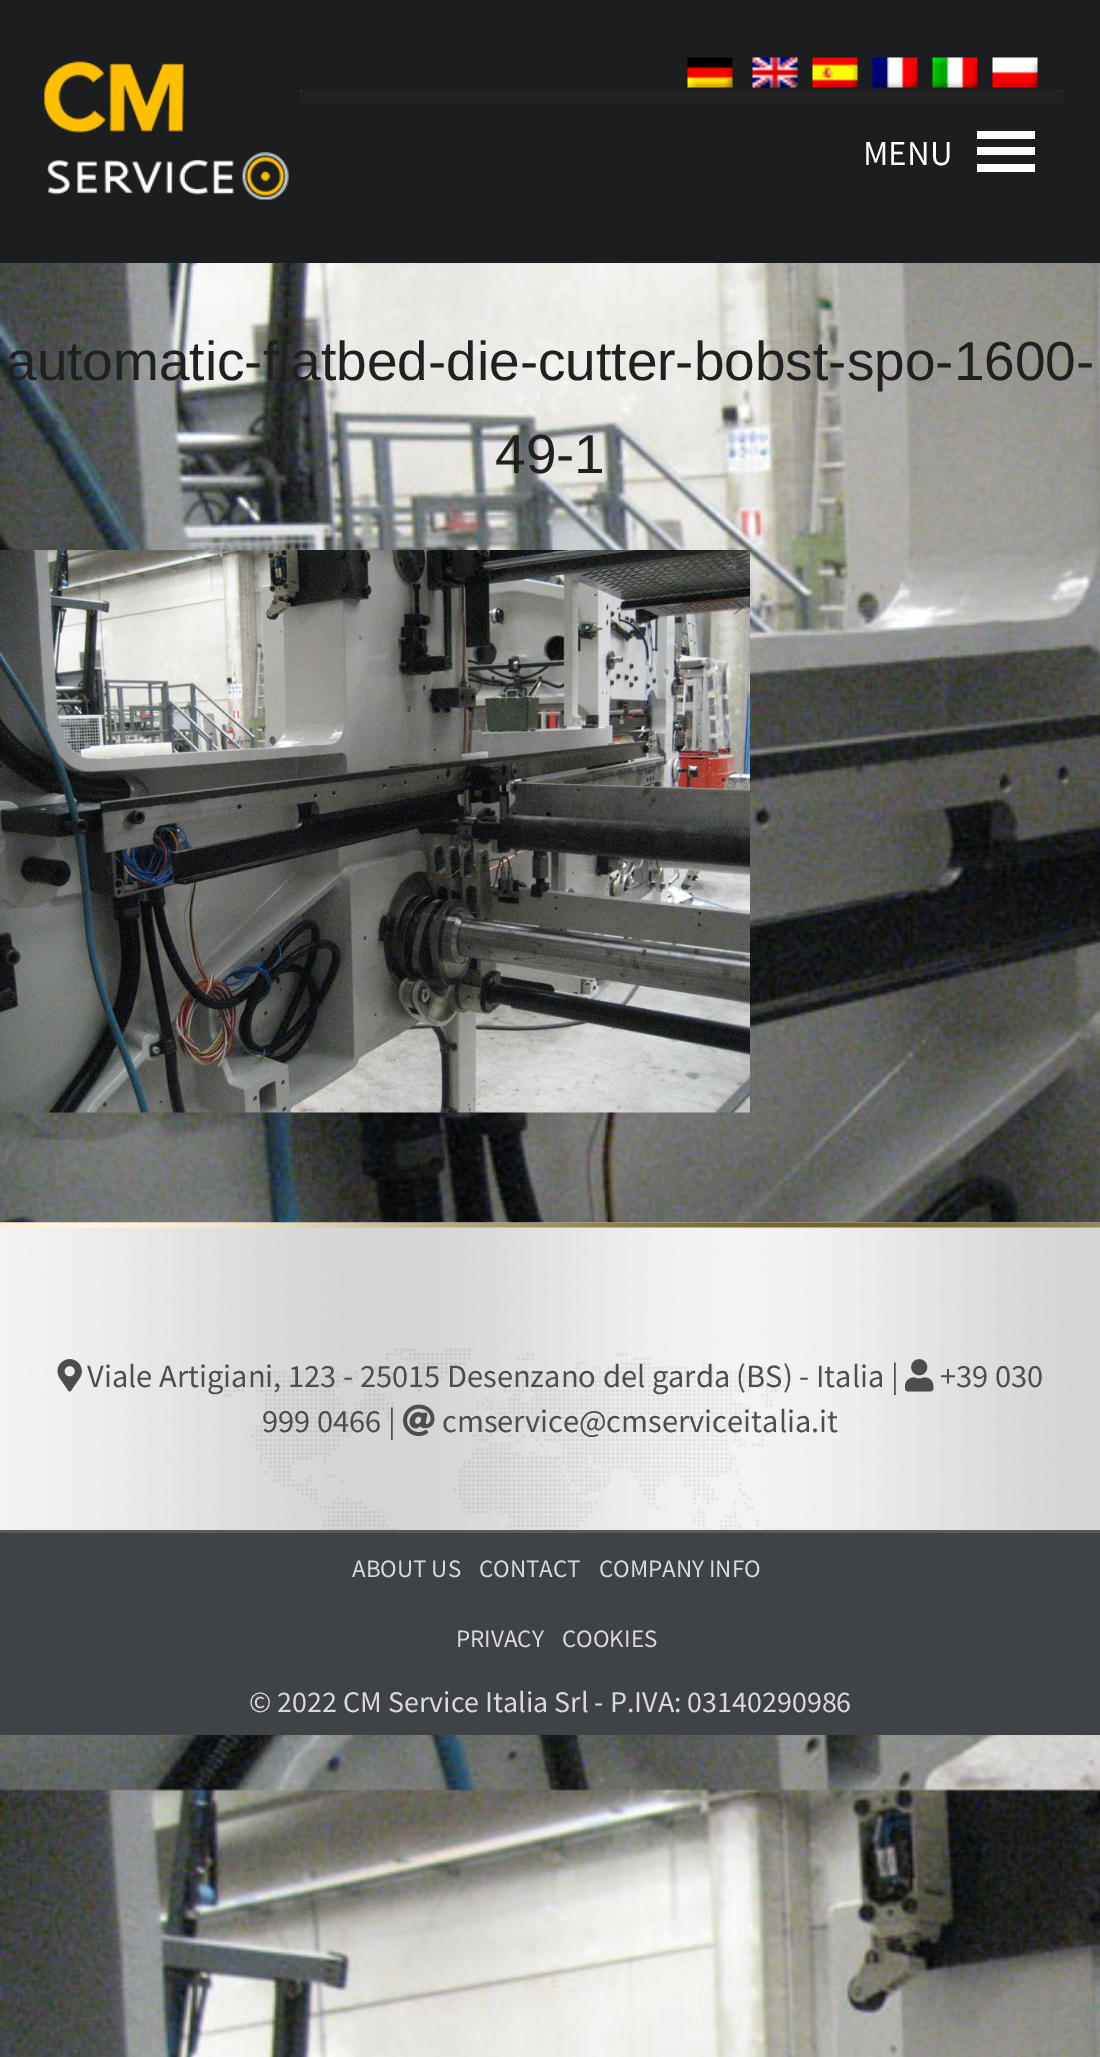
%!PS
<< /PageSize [1100 2057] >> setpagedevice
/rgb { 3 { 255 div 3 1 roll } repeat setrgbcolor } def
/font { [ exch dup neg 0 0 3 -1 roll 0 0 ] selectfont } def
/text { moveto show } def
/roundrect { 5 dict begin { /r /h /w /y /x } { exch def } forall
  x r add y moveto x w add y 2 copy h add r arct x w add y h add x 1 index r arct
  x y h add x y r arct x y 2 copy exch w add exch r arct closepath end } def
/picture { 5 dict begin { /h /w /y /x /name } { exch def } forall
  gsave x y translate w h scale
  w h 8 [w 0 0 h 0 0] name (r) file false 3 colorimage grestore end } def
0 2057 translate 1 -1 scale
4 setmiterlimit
255 255 255 rgb
0 0 1100 2057 rectfill
(img_01.rgb) 0 263 1100 1794 picture
27 29 31 rgb
0 0 1100 263 rectfill
(img_02.rgb) 44 61 245 139 picture
(img_03.rgb) 687 57 46 31 picture
(img_04.rgb) 752 57 46 31 picture
(img_05.rgb) 812 57 46 31 picture
(img_06.rgb) 872 57 46 31 picture
(img_07.rgb) 932 57 46 31 picture
(img_08.rgb) 992 57 46 31 picture
51 51 51 rgb
300 90 763 5 rectfill
34 34 34 rgb
300 90 763 100 5 roundrect fill
27 29 31 rgb
300 103 763 87 rectfill
255 255 255 rgb
977 172 moveto 58 0 rlineto 0 -8 rlineto -58 0 rlineto closepath 977 131 moveto 0 8 rlineto 58 0 rlineto 0 -8 rlineto closepath 977 155 moveto 58 0 rlineto 0 -8 rlineto -58 0 rlineto closepath fill
(img_09.rgb) 0 550 750 563 picture
(img_10.rgb) 0 1222 1100 308 picture
(img_11.rgb) 0 1222 1100 6 picture
(img_12.rgb) 57 1359 25 33 picture
(img_13.rgb) 905 1359 29 33 picture
(img_14.rgb) 403 1404 32 33 picture
63 67 72 rgb
0 1533 1100 202 rectfill
90 90 90 rgb
0 1530 1100 3 rectfill
/SourceSansPro-Regular 35 font
255 255 255 rgb
(MENU) 863 165 text
/LiberationSans-Regular 55 font
32 32 32 rgb
(automatic-flatbed-die-cutter-bobst-spo-1600-) 6 380 text
(49-1) 495 473 text
/SourceSansPro-Regular 32.5 font
78 77 77 rgb
(Viale Artigiani, 123 - 25015 Desenzano del garda \(BS\) - Italia |) 87 1387 text
(+39 030) 940 1387 text
(999 0466 |) 262 1432 text
(cmservice@cmserviceitalia.it) 442 1432 text
/SourceSansPro-Regular 25 font
218 218 218 rgb
(ABOUT US) 352 1577 text
(CONTACT) 479 1577 text
(COMPANY INFO) 599 1577 text
(PRIVACY) 456 1647 text
(COOKIES) 562 1647 text
/SourceSansPro-Regular 30 font
(© 2022 CM Service Italia Srl - P.IVA: 03140290986) 249 1712 text
showpage
